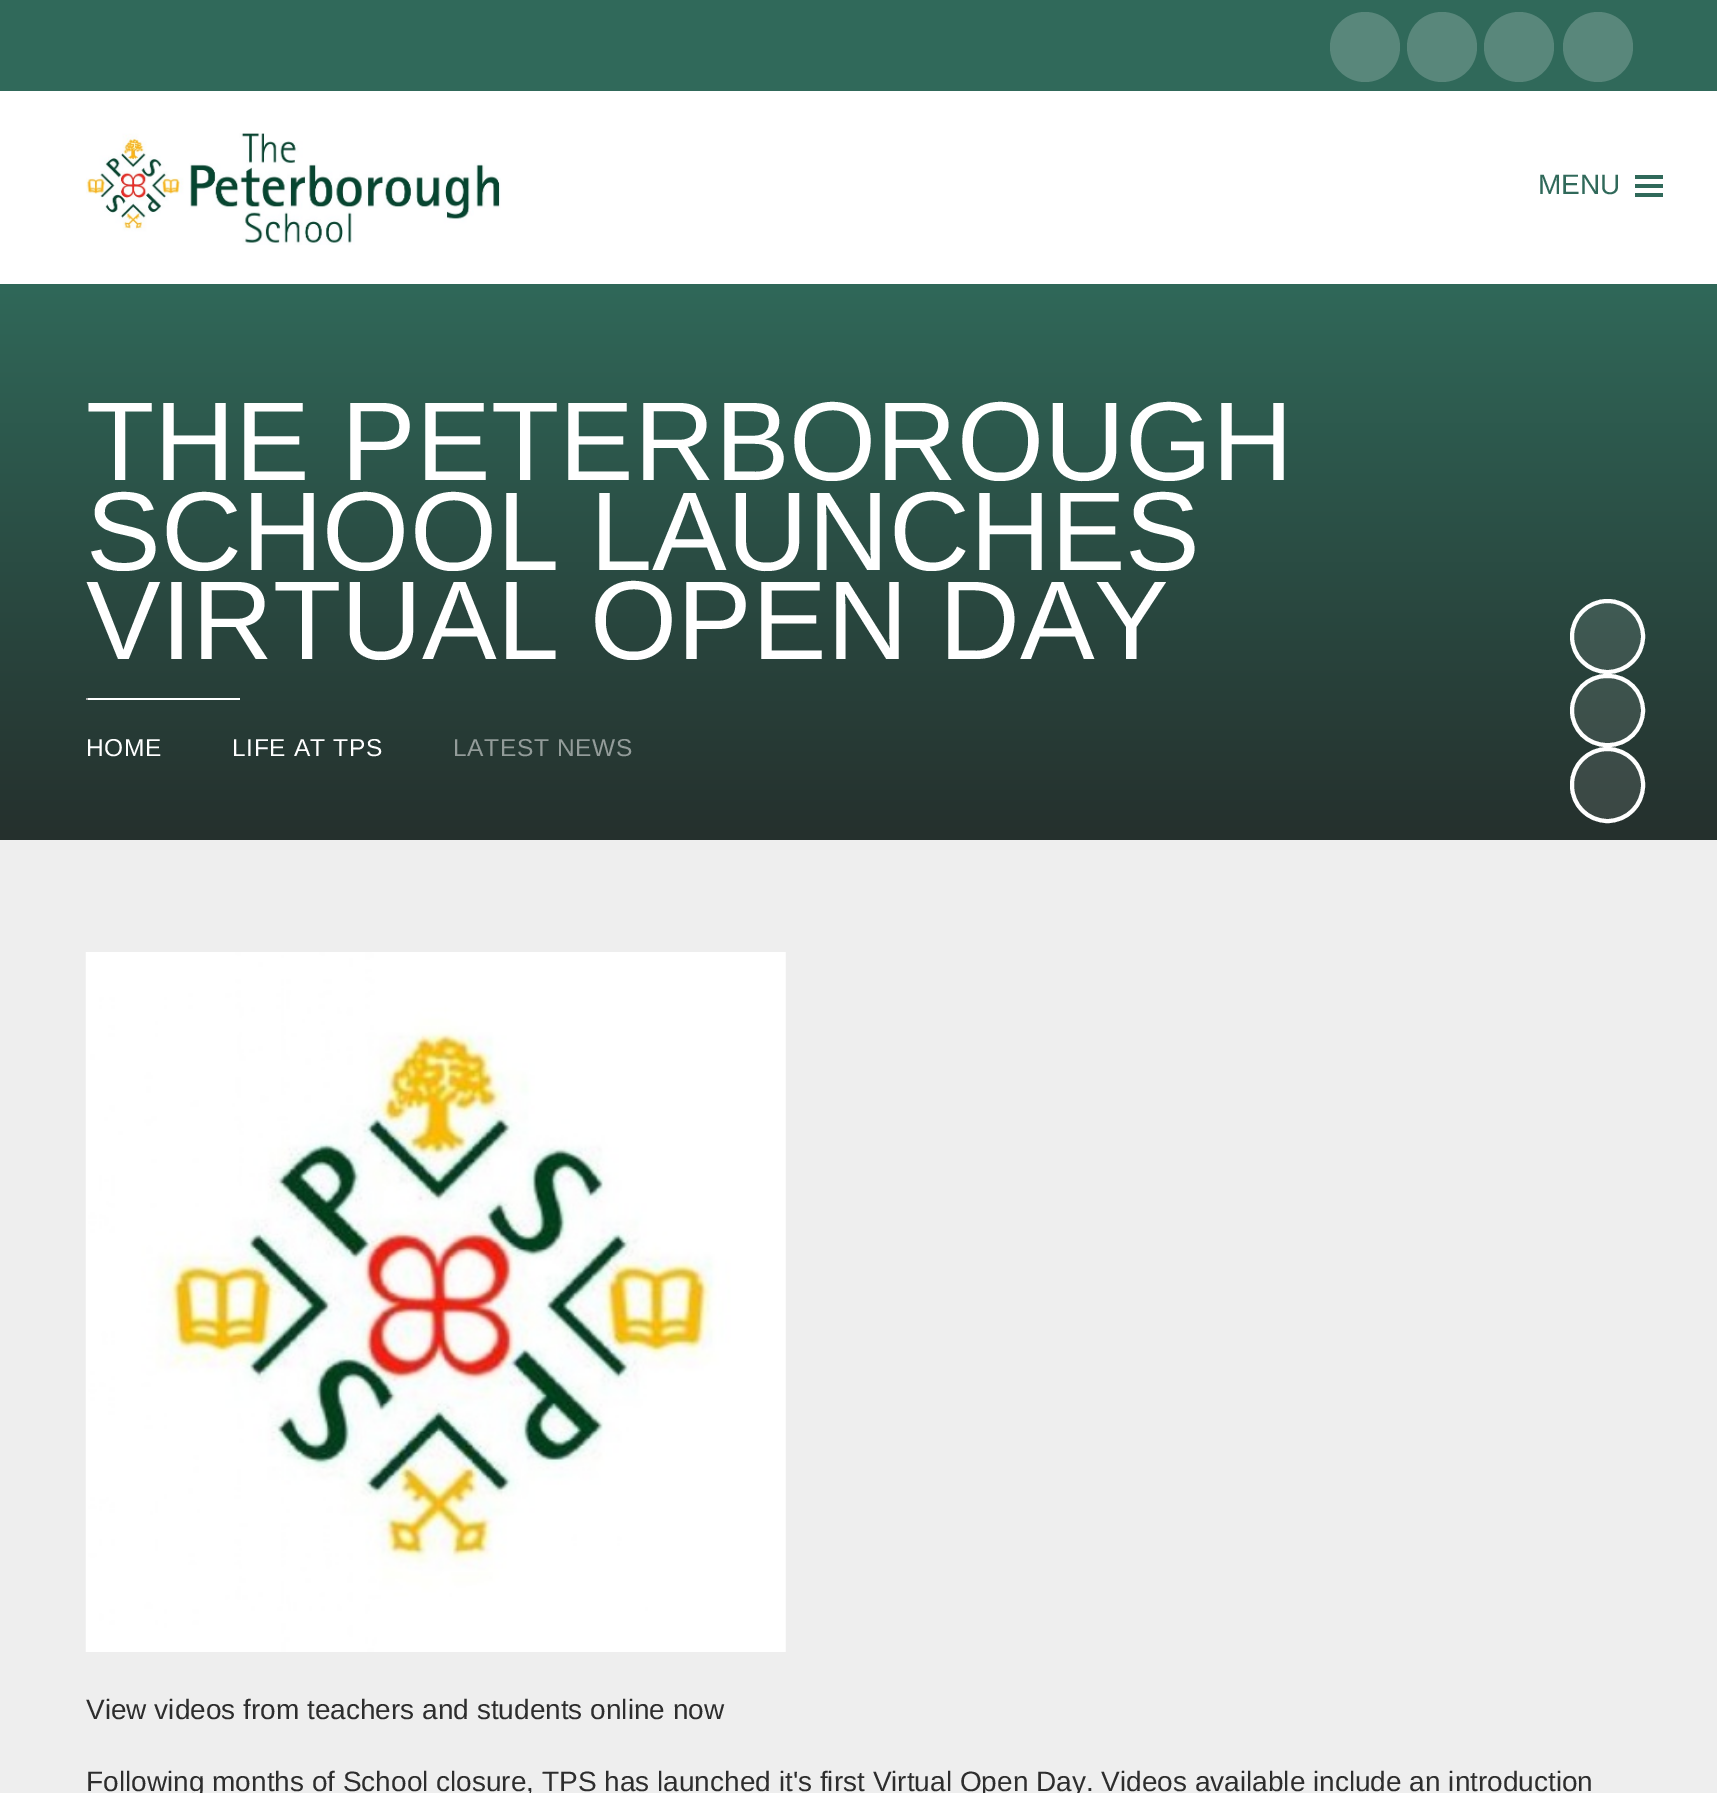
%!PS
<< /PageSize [1717 1793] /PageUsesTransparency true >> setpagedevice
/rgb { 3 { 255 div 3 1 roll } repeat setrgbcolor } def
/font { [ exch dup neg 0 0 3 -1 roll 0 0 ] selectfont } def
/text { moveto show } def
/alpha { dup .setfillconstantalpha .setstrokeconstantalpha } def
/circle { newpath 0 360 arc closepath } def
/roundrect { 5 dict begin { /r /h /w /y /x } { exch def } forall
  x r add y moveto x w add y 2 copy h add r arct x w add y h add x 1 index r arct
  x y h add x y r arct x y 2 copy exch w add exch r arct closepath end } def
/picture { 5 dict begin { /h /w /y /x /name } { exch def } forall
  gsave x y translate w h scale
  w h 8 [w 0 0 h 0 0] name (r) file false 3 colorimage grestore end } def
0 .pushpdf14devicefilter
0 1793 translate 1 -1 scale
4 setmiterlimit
238 238 238 rgb
0 0 1717 1793 rectfill
255 255 255 rgb
0 91 1717 193 rectfill
48 105 90 rgb
0 0 1717 91 rectfill
89 135 123 rgb
1365 47 35 circle fill
1442 47 35 circle fill
1519 47 35 circle fill
1598 47 35 circle fill
(img_01.rgb) 86 133 415 112 picture
48 105 90 rgb
1635 175 28 4 rectfill
1635 184 28 4 rectfill
1635 193 28 4 rectfill
gsave 0 284 moveto 1717 0 rlineto 0 556 rlineto -1717 0 rlineto closepath clip newpath
<< /ShadingType 2 /ColorSpace /DeviceRGB /Coords [859 280 859 840] /Extend [true true] /Function << /FunctionType 2 /Domain [0 1] /C0 [0.188 0.408 0.349] /C1 [0.145 0.188 0.176] /N 1 >> >> shfill grestore
255 255 255 rgb
86 698 154 2 rectfill
170 170 170 rgb
86 698 2 2 rectfill
0.1 alpha
255 255 255 rgb
1607.5 636.5 35.5 circle fill
1 alpha
4 setlinewidth
1607.5 636.5 35.5 circle stroke
0.1 alpha
1572 676 71 69 34.5 roundrect fill
1 alpha
1572 676 71 69 34.5 roundrect stroke
0.1 alpha
1572 749 71 72 35.5 roundrect fill
1 alpha
1572 749 71 72 35.5 roundrect stroke
(img_02.rgb) 85 952 701 700 picture
/LiberationSans-Regular 28 font
48 105 90 rgb
(MENU) 1538 194 text
/LiberationSans-Regular 112 font
255 255 255 rgb
(THE PETERBOROUGH) 86 480 text
(SCHOOL LAUNCHES) 86 570 text
(VIRTUAL OPEN DAY) 86 659 text
/LiberationSans-Regular 24.5 font
86 756 moveto 0.6 0 (HOME) ashow
232 756 moveto 0.6 0 (LIFE AT TPS) ashow
147 156 154 rgb
453 756 moveto 0.6 0 (LATEST NEWS) ashow
/LiberationSans-Regular 28 font
45 45 45 rgb
(View videos from teachers and students online now) 86 1719 text
(Following months of School closure, TPS has launched it's first Virtual Open Day. Videos available include an introduction) 86 1791 text
.poppdf14devicefilter showpage
